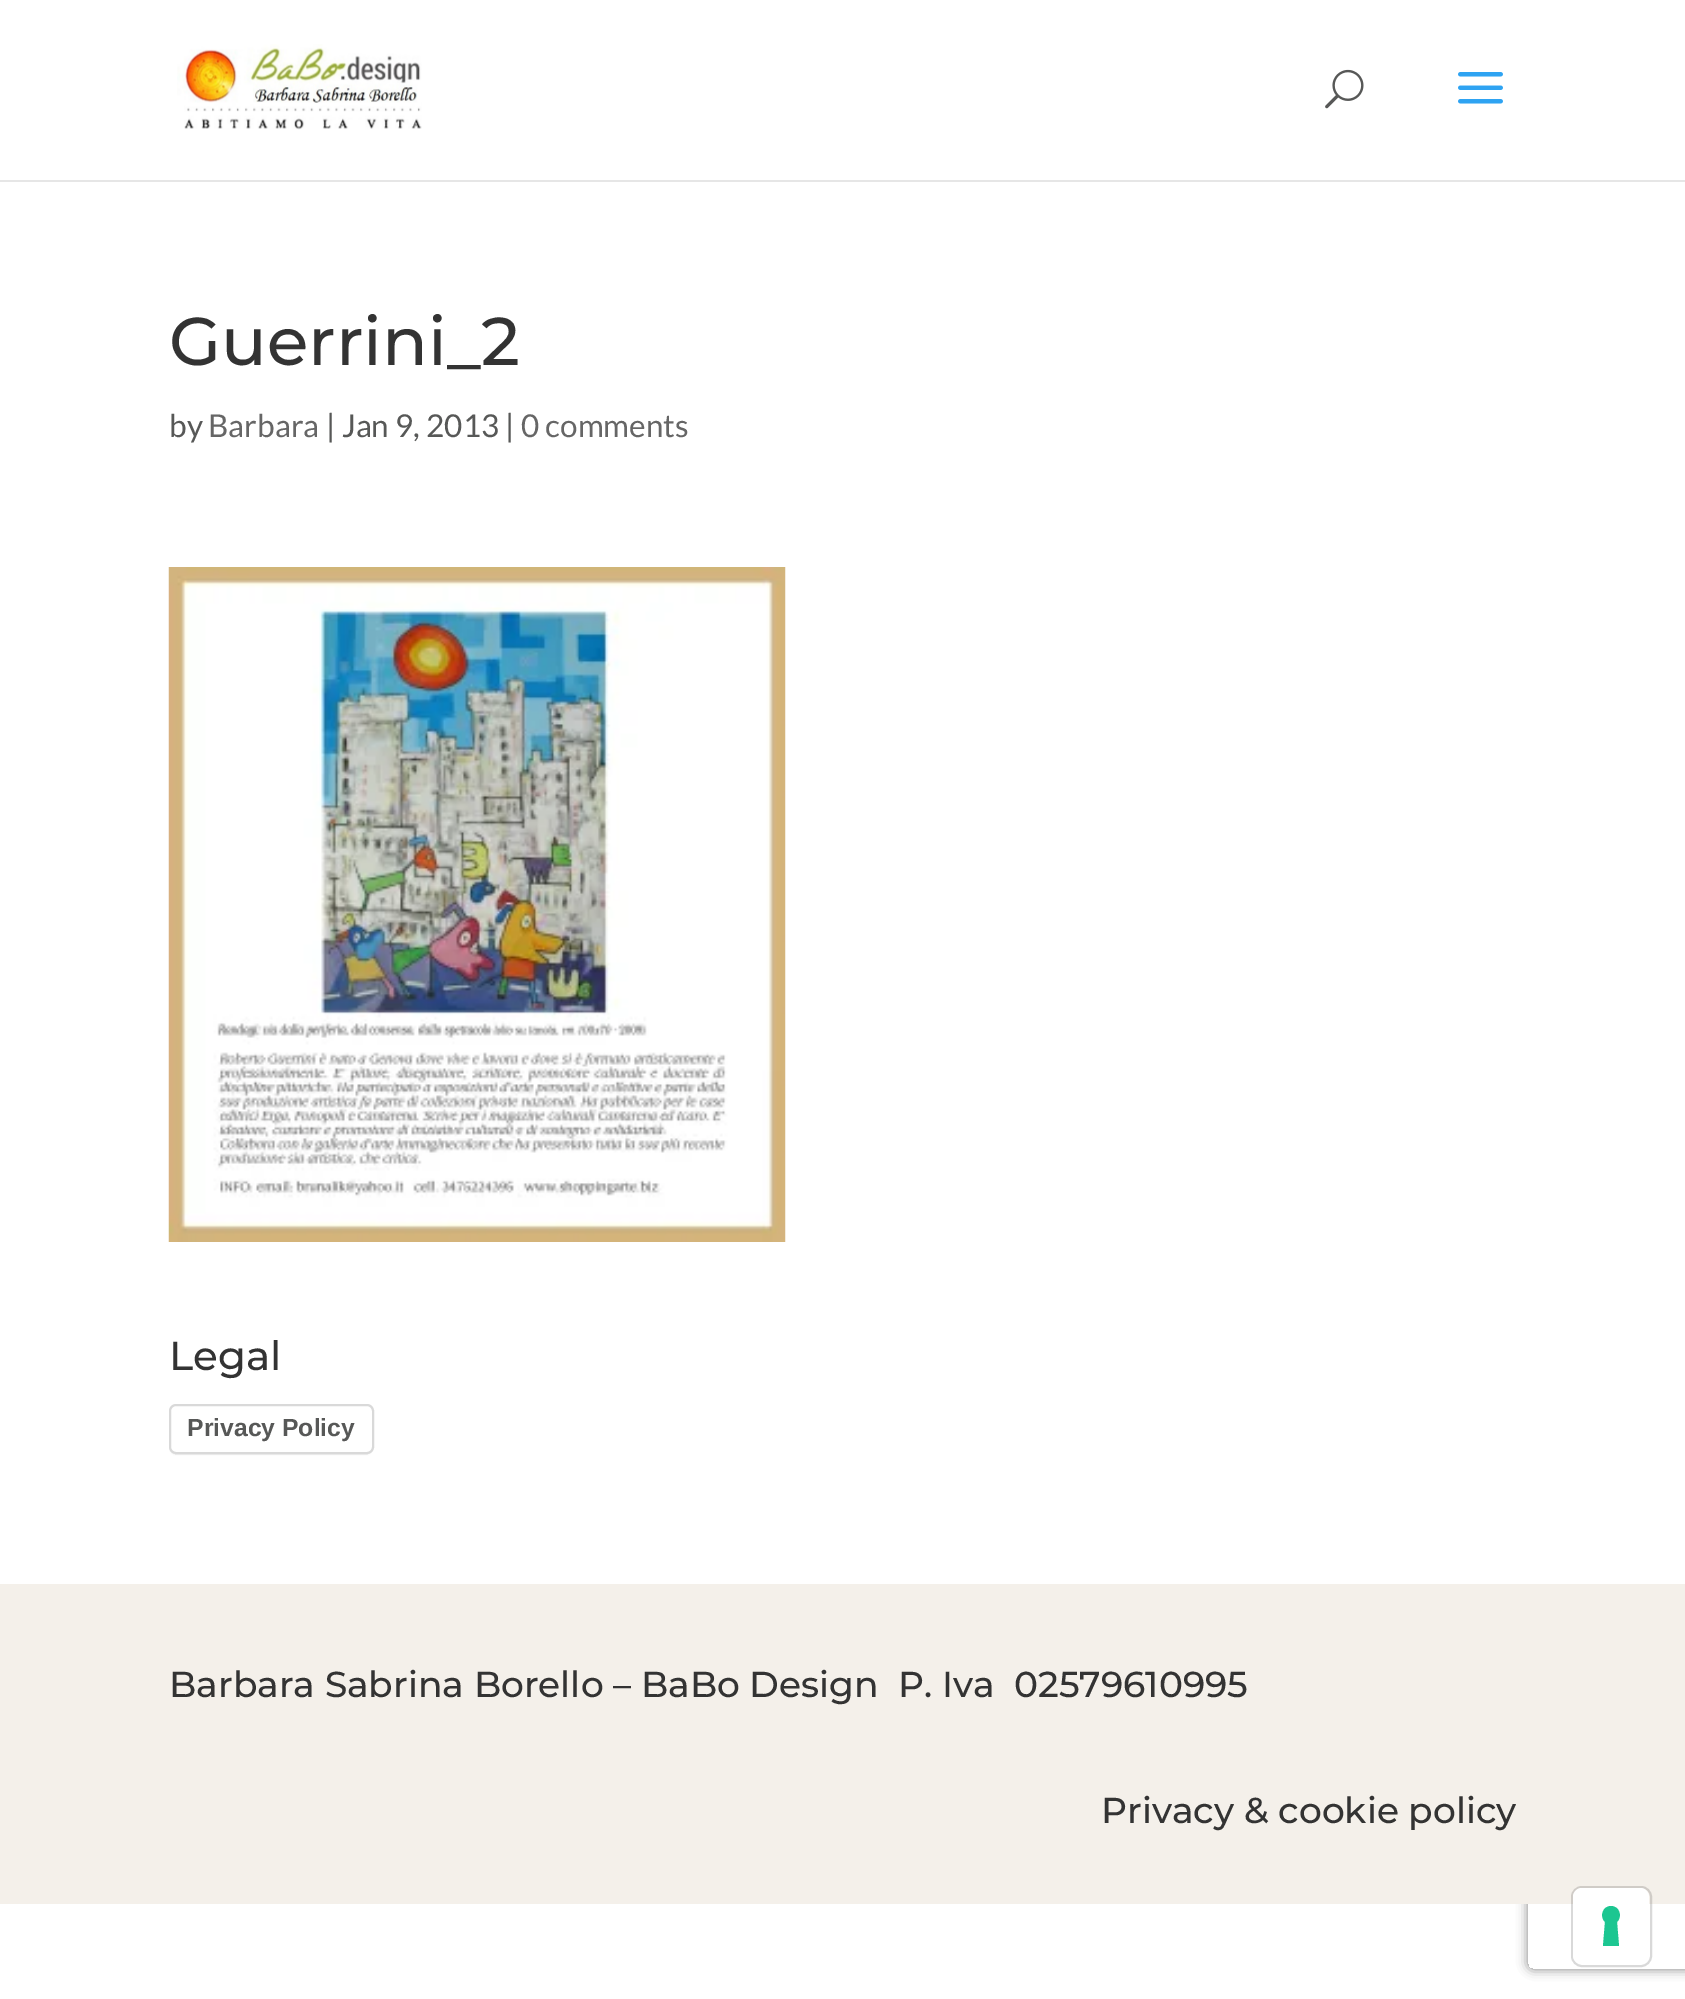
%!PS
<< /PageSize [1685 1999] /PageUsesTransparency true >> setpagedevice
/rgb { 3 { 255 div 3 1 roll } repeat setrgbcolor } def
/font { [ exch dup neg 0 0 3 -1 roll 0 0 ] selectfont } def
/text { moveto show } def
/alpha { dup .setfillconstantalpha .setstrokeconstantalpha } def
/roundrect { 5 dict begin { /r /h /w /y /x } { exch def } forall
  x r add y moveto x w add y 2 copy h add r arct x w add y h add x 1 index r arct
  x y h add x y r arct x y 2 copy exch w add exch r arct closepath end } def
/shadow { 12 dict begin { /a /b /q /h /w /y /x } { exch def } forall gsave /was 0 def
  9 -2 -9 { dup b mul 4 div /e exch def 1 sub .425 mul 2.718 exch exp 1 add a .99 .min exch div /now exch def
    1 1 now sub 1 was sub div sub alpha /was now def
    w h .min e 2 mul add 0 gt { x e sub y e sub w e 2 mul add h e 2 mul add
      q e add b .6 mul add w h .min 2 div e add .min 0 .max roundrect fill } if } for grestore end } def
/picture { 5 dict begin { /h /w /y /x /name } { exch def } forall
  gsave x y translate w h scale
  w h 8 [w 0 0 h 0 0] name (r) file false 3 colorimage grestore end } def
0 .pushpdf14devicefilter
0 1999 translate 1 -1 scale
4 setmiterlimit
255 255 255 rgb
0 0 1685 1999 rectfill
230 230 230 rgb
0 180 1685 2 rectfill
(img_01.rgb) 177 44 245 86 picture
(img_02.rgb) 1325 69 39 40 picture
(img_03.rgb) 1458 72 45 32 picture
(img_04.rgb) 168 567 618 675 picture
0 0 0 rgb
171 1409 200 45 5 1 0.15 shadow
255 255 255 rgb
169 1404 205 50 7 roundrect fill
0.15 alpha
0 0 0 rgb
2 setlinewidth
170 1405 203 48 6 roundrect stroke
gsave
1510 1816 moveto 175 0 rlineto 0 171 rlineto -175 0 rlineto closepath 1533 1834 moveto 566 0 rlineto 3 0 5 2 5 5 rcurveto 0 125 rlineto 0 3 -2 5 -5 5 rcurveto -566 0 rlineto -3 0 -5 -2 -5 -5 rcurveto 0 -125 rlineto 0 -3 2 -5 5 -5 rcurveto closepath eoclip newpath
1 alpha
128 128 128 rgb
1528 1834 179 135 5 5.5 1 shadow
grestore
1 alpha
244 240 234 rgb
0 1584 1685 320 rectfill
0.15 alpha
0 0 0 rgb
1572 1887 79 79 10 roundrect stroke
1 alpha
255 255 255 rgb
1573 1888 76 76 9 roundrect fill
28 198 145 rgb
1611 1906 moveto 8 0 12 10 6 16 rcurveto 2 24 rlineto -16 0 rlineto 2 -24 rlineto -6 -6 -2 -16 6 -16 rcurveto closepath eofill
/Montserrat-Medium 67.5 font
51 51 51 rgb
(Guerrini_2) 169 365 text
/Lato-Regular 31.5 font
87 88 87 rgb
(by) 169 437 text
102 102 102 rgb
(Barbara) 208 437 text
87 88 87 rgb
(| Jan 9, 2013 |) 326 437 text
102 102 102 rgb
(0 comments) 521 437 text
/Montserrat-Medium 40.5 font
51 51 51 rgb
(Legal) 169 1370 text
/LiberationSans-Bold 24.75 font
87 88 87 rgb
(Privacy Policy) 187 1436 text
/Montserrat-Medium 36 font
51 51 51 rgb
(Barbara Sabrina Borello – BaBo Design  P. Iva) 169 1697 text
(02579610995) 1014 1697 text
(Privacy & cookie policy) 1101 1823 text
.poppdf14devicefilter showpage
